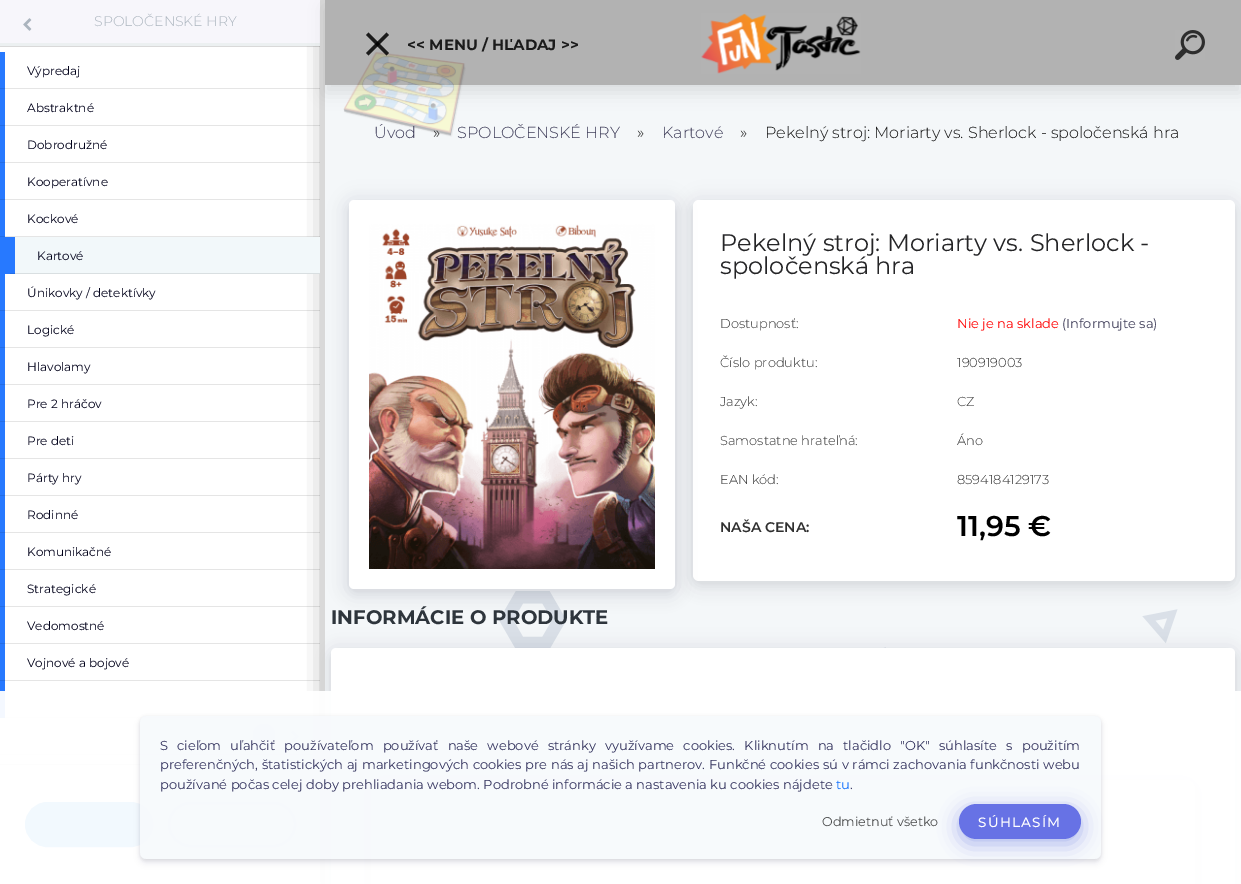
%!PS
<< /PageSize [1241 884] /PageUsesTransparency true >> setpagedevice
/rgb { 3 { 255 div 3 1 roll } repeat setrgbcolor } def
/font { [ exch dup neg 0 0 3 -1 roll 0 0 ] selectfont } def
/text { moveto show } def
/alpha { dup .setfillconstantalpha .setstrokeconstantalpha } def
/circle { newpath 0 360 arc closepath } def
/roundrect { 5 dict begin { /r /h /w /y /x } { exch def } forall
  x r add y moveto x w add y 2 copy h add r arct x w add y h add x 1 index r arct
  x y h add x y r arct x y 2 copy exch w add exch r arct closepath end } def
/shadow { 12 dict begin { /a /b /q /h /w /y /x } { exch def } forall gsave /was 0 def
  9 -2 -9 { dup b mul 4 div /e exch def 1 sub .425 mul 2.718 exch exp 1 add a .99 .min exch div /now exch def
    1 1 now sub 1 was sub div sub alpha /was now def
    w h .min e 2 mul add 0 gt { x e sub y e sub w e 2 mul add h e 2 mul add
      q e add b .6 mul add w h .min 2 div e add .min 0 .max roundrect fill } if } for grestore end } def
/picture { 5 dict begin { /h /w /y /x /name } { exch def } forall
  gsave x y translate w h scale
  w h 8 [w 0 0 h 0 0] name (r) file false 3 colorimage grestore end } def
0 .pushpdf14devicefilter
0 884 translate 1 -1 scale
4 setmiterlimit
255 255 255 rgb
0 0 1241 884 rectfill
0 0 0 rgb
335 -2 320 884 0 12.5 1 shadow
0.15 alpha
0 46 320 1 rectfill
1 alpha
247 246 251 rgb
0 0 320 43 rectfill
236 240 241 rgb
0 43 320 3 rectfill
(img_01.rgb) 23 18 9 13 picture
39 121 255 rgb
0 52 5 185 rectfill
0.1 alpha
0 0 0 rgb
0 88 320 1 rectfill
0 125 320 1 rectfill
0 162 320 1 rectfill
0 199 320 1 rectfill
0 236 320 1 rectfill
1 alpha
242 248 250 rgb
15 237 305 37 rectfill
39 121 255 rgb
0 237 15 37 rectfill
0.1 alpha
0 0 0 rgb
10 273 310 1 rectfill
1 alpha
39 121 255 rgb
0 274 5 444 rectfill
0.1 alpha
0 0 0 rgb
0 310 320 1 rectfill
0 347 320 1 rectfill
0 384 320 1 rectfill
0 421 320 1 rectfill
0 458 320 1 rectfill
0 495 320 1 rectfill
0 532 320 1 rectfill
0 569 320 1 rectfill
0 606 320 1 rectfill
0 643 320 1 rectfill
0 680 320 1 rectfill
0 717 320 1 rectfill
1 alpha
0 132 230 rgb
264 735 11 circle fill
298.5 736.5 moveto -5.5 5.5 rlineto -1.5 -1.5 rlineto 5.5 -5.5 rlineto closepath fill
298.5 736.5 moveto -1.5 1.5 rlineto -5.5 -5.5 rlineto 1.5 -1.5 rlineto closepath fill
0.1 alpha
0 0 0 rgb
0 754 320 1 rectfill
1 alpha
0 132 230 rgb
251 761 24 22 11 roundrect fill
255 255 255 rgb
251 765 69 119 rectfill
217 217 217 rgb
0 764 320 1 rectfill
0 132 230 rgb
25.5 802.5 127 44 22 roundrect gsave fill grestore
stroke
2 setlinewidth
169 803 126 43 21.5 roundrect stroke
255 255 255 rgb
325 0 359 85 rectfill
244 247 249 rgb
325 85 916 799 rectfill
(img_04.rgb) 343 51 123 86 picture
gsave
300 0 moveto 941 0 rlineto 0 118 rlineto -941 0 rlineto closepath 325 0 moveto 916 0 rlineto 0 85 rlineto -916 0 rlineto closepath eoclip newpath
0 0 0 rgb
325 8 916 85 0 8 0.1 shadow
grestore
0.3 alpha
0 0 0 rgb
325 0 916 85 rectfill
1 alpha
27 27 27 rgb
389 35 moveto -20.5 20.5 rlineto -2.5 -2.5 rlineto 20.5 -20.5 rlineto closepath fill
0.85 alpha
0 0 0 rgb
386.5 55.5 moveto -20.5 -20.5 rlineto 2.5 -2.5 rlineto 20.5 20.5 rlineto closepath fill
1 alpha
(img_02.rgb) 701 13 160 61 picture
(img_03.rgb) 1175 30 30 30 picture
(img_06.rgb) 499 591 679 57 picture
693 205 542 381 6 7.5 0.07 shadow
50 50 93 rgb
693 202 542 381 6 10 0.1 shadow
255 255 255 rgb
693 200 542 381 6 roundrect fill
50 50 93 rgb
349 202 326 389 5 10 0.1 shadow
0 0 0 rgb
349 205 326 389 5 7.5 0.07 shadow
255 255 255 rgb
349 200 326 389 5 roundrect fill
(img_05.rgb) 369 224 286 345 picture
0 0 0 rgb
331 653 904 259 5 7.5 0.07 shadow
gsave
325 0 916 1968 rectclip
50 50 93 rgb
331 650 904 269 5 10 0.1 shadow
grestore
255 255 255 rgb
331 648 904 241 5 roundrect fill
0 0 0 rgb
371 785 824 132 10 7.5 0.07 shadow
50 50 93 rgb
371 782 824 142 10 10 0.1 shadow
255 255 255 rgb
371 780 824 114 10 roundrect fill
248 248 248 rgb
371 810 824 30 rectfill
371 870 824 14 rectfill
0.95 alpha
255 255 255 rgb
0 691 1241 193 rectfill
gsave
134 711 moveto 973 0 rlineto 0 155 rlineto -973 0 rlineto closepath 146 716 moveto 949 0 rlineto 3.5 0 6 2.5 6 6 rcurveto 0 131 rlineto 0 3.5 -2.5 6 -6 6 rcurveto -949 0 rlineto -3.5 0 -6 -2.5 -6 -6 rcurveto 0 -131 rlineto 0 -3.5 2.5 -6 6 -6 rcurveto closepath eoclip newpath
1 alpha
0 0 0 rgb
140 717 961 143 6 1.5 0.08 shadow
grestore
gsave
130 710 moveto 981 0 rlineto 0 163 rlineto -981 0 rlineto closepath 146 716 moveto 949 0 rlineto 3.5 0 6 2.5 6 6 rcurveto 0 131 rlineto 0 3.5 -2.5 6 -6 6 rcurveto -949 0 rlineto -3.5 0 -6 -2.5 -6 -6 rcurveto 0 -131 rlineto 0 -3.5 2.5 -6 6 -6 rcurveto closepath eoclip newpath
1 alpha
50 50 93 rgb
140 720 961 143 6 3 0.11 shadow
grestore
0.9 alpha
246 249 252 rgb
140 716 961 143 6 roundrect fill
1 alpha
58 84 214 rgb
959 809 122 35 17.5 10 0.4 shadow
103 114 229 rgb
959 804 122 35 17.5 roundrect fill
/Montserrat-Light 14 font
171 180 190 rgb
(SPOLOČENSKÉ HRY) 94 26 text
/Montserrat-Regular 12 font
0 0 25 rgb
(Výpredaj) 27 75 text
(Abstraktné) 27 112 text
(Dobrodružné) 27 149 text
(Kooperatívne) 27 186 text
(Kockové) 27 223 text
(Kartové) 37 260 text
(Únikovky / detektívky) 27 297 text
(Logické) 27 334 text
(Hlavolamy) 27 371 text
(Pre 2 hráčov) 27 408 text
(Pre deti) 27 445 text
(Párty hry) 27 482 text
(Rodinné) 27 519 text
(Komunikačné) 27 556 text
(Strategické) 27 593 text
(Vedomostné) 27 630 text
(Vojnové a bojové) 27 667 text
/Montserrat-Bold 15 font
27 27 27 rgb
(<< MENU / HĽADAJ >>) 407 50 text
/Montserrat-Light 16 font
63 61 89 rgb
(Úvod) 374 138 text
16 16 16 rgb
(») 433 138 text
63 61 89 rgb
(SPOLOČENSKÉ HRY) 457 138 text
16 16 16 rgb
(») 637 138 text
63 61 89 rgb
(Kartové) 662 138 text
16 16 16 rgb
(») 740 138 text
(Pekelný stroj: Moriarty vs. Sherlock - spoločenská hra) 765 138 text
/Montserrat-Regular 24 font
37 37 39 rgb
(Pekelný stroj: Moriarty vs. Sherlock -) 720 251 text
(spoločenská hra) 720 274 text
/Montserrat-Light 13 font
47 47 47 rgb
(Dostupnosť:) 720 328 text
/Montserrat-Regular 13 font
255 0 0 rgb
(Nie je na sklade) 957 328 text
63 61 89 rgb
(\(Informujte sa\)) 1062 328 text
/Montserrat-Light 13 font
47 47 47 rgb
(Číslo produktu:) 720 367 text
(190919003) 957 367 text
(Jazyk:) 720 406 text
(CZ) 957 406 text
(Samostatne hrateľná:) 720 445 text
(Áno) 957 445 text
(EAN kód:) 720 484 text
(8594184129173) 957 484 text
/Montserrat-SemiBold 14 font
(NAŠA CENA:) 720 532 text
/Montserrat-SemiBold 28.5 font
0 0 0 rgb
(11,95 €) 957 536 text
/Montserrat-Bold 19.6 font
46 53 60 rgb
(INFORMÁCIE O PRODUKTE) 331 624 text
/Montserrat-Regular 13 font
50 50 93 rgb
160 750 moveto 5.75 0 32 (S cieľom uľahčiť používateľom používať naše webové stránky využívame cookies. Kliknutím na tlačidlo "OK" súhlasíte s použitím) widthshow
160 769 moveto 0.3 0 32 (preferenčných, štatistických aj marketingových cookies pre nás aj našich partnerov. Funkčné cookies sú v rámci zachovania funkčnosti webu) widthshow
(používané počas celej doby prehliadania webom. Podrobné informácie a nastavenia ku cookies nájdete) 160 789 text
13 110 253 rgb
(tu) 836 789 text
50 50 93 rgb
(.) 850 789 text
/Montserrat-Regular 12.75 font
74 75 76 rgb
(Odmietnuť všetko) 822 826 text
/Montserrat-Medium 13.5 font
255 255 255 rgb
978 827 moveto 1.25 0 (SÚHLASÍM) ashow
.poppdf14devicefilter showpage
